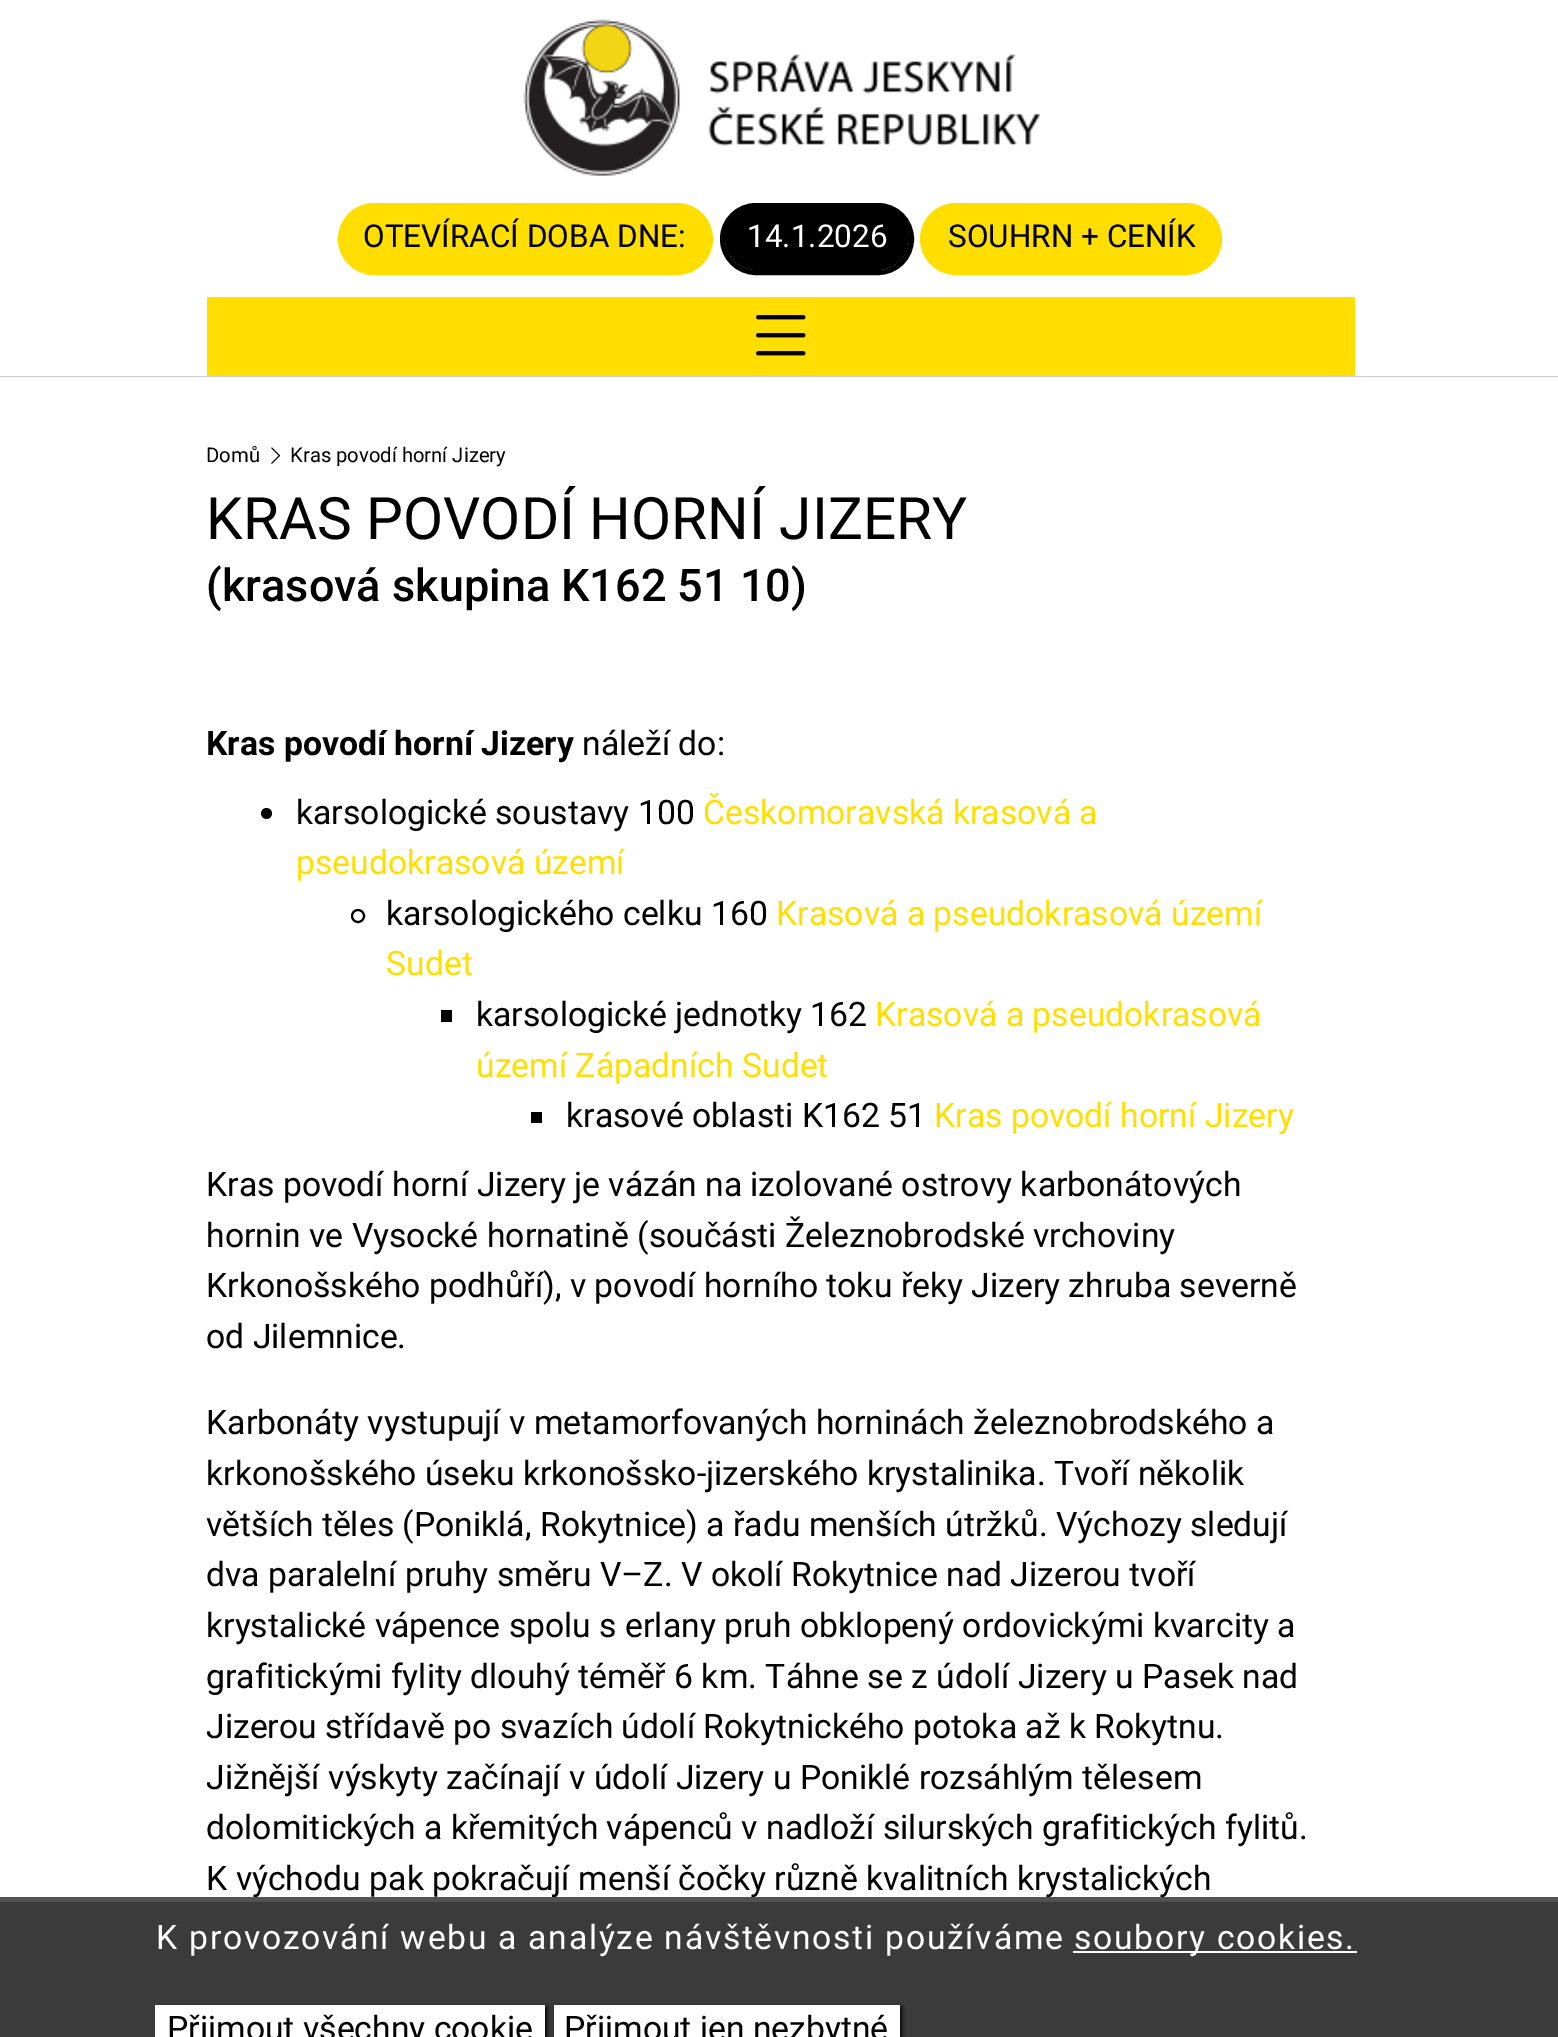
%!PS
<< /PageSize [1558 2037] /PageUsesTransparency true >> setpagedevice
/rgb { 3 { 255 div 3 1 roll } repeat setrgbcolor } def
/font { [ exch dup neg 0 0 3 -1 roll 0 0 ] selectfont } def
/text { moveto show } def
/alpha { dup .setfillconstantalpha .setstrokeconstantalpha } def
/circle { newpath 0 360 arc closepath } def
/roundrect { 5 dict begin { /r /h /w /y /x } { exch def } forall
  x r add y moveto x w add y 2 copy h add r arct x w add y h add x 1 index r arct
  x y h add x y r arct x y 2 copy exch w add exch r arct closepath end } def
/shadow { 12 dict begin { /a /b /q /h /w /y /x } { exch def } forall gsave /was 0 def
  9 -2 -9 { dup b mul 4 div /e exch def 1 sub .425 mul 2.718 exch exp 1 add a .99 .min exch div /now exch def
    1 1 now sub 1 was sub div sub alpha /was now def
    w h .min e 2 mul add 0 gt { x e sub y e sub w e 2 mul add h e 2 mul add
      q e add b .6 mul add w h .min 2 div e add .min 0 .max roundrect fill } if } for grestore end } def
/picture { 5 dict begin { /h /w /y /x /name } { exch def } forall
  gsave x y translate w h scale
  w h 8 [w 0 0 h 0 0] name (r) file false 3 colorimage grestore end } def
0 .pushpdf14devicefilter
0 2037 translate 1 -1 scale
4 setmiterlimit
255 255 255 rgb
0 0 1558 2037 rectfill
108 108 108 rgb
0 0 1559 376 0 1 1 shadow
255 255 255 rgb
0 0 1558 376 rectfill
(img_01.rgb) 523 19 517 157 picture
255 222 0 rgb
5 setlinewidth
340.5 205.5 370 67 33.5 roundrect stroke
342 207 367 63 31.5 roundrect fill
0 0 0 rgb
722.5 205.5 189 67 33.5 roundrect stroke
725 207 184 63 31.5 roundrect fill
255 222 0 rgb
922.5 205.5 297 67 33.5 roundrect stroke
925 207 292 63 31.5 roundrect fill
207 297 1148 79 rectfill
(img_02.rgb) 756 315 50 41 picture
(img_03.rgb) 271 447 9 17 picture
0 0 0 rgb
266.5 813.5 5.5 circle fill
2 setlinewidth
358 916 6 circle stroke
441 1010 11 12 rectfill
531 1112 11 11 rectfill
59 59 59 rgb
0 1902 1558 135 rectfill
255 255 255 rgb
1073 1951 284 2 rectfill
0 0 0 rgb
158 2007 389 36 0 2 1 shadow
255 255 255 rgb
155 2005 390 32 rectfill
0 0 0 rgb
556 2007 346 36 0 2 1 shadow
255 255 255 rgb
554 2005 346 32 rectfill
/Roboto-Regular 31.5 font
0 0 0 rgb
(OTEVÍRACÍ DOBA DNE:) 363 247 text
255 255 255 rgb
(14.1.2026) 747 247 text
0 0 0 rgb
(SOUHRN + CENÍK) 948 247 text
/Roboto-Regular 20.25 font
(Domů) 206 462 text
(Kras povodí horní Jizery) 290 462 text
/Roboto-Regular 58.5 font
(KRAS POVODÍ HORNÍ JIZERY) 206 539 text
/Roboto-Medium 45 font
(\(krasová skupina K162 51 10\)) 206 601 text
/Roboto-Bold 33.75 font
(Kras povodí horní Jizery) 206 755 text
/Roboto-Regular 33.75 font
(náleží do:) 582 755 text
(karsologické soustavy 100) 296 824 text
255 222 0 rgb
(Českomoravská krasová a) 703 824 text
(pseudokrasová území) 296 874 text
0 0 0 rgb
(karsologického celku 160) 386 925 text
255 222 0 rgb
(Krasová a pseudokrasová území) 776 925 text
(Sudet) 386 975 text
0 0 0 rgb
(karsologické jednotky 162) 476 1026 text
255 222 0 rgb
(Krasová a pseudokrasová) 875 1026 text
(území Západních Sudet) 476 1077 text
0 0 0 rgb
(krasové oblasti K162 51) 566 1127 text
255 222 0 rgb
(Kras povodí horní Jizery) 934 1127 text
0 0 0 rgb
(Kras povodí horní Jizery je vázán na izolované ostrovy karbonátových) 206 1196 text
(hornin ve Vysocké hornatině \(součásti Železnobrodské vrchoviny) 206 1247 text
(Krkonošského podhůří\), v povodí horního toku řeky Jizery zhruba severně) 206 1297 text
(od Jilemnice.) 206 1348 text
(Karbonáty vystupují v metamorfovaných horninách železnobrodského a) 206 1434 text
(krkonošského úseku krkonošsko-jizerského krystalinika. Tvoří několik) 206 1485 text
(větších těles \(Poniklá, Rokytnice\) a řadu menších útržků. Výchozy sledují) 206 1536 text
(dva paralelní pruhy směru V–Z. V okolí Rokytnice nad Jizerou tvoří) 206 1586 text
(krystalické vápence spolu s erlany pruh obklopený ordovickými kvarcity a) 206 1637 text
(grafitickými fylity dlouhý téměř 6 km. Táhne se z údolí Jizery u Pasek nad) 206 1688 text
(Jizerou střídavě po svazích údolí Rokytnického potoka až k Rokytnu.) 206 1738 text
(Jižnější výskyty začínají v údolí Jizery u Poniklé rozsáhlým tělesem) 206 1789 text
(dolomitických a křemitých vápenců v nadloží silurských grafitických fylitů.) 206 1839 text
(K východu pak pokračují menší čočky různě kvalitních krystalických) 206 1890 text
82 82 82 rgb
0 1897 1558 5 rectfill
255 255 255 rgb
156 1949 moveto 1.7 0 (K provozování webu a analýze návštěvnosti používáme) ashow
1074 1949 moveto 1.7 0 (soubory cookies.) ashow
0 0 0 rgb
(Přijmout všechny cookie) 167 2040 text
(Přijmout jen nezbytné) 564 2040 text
.poppdf14devicefilter showpage
